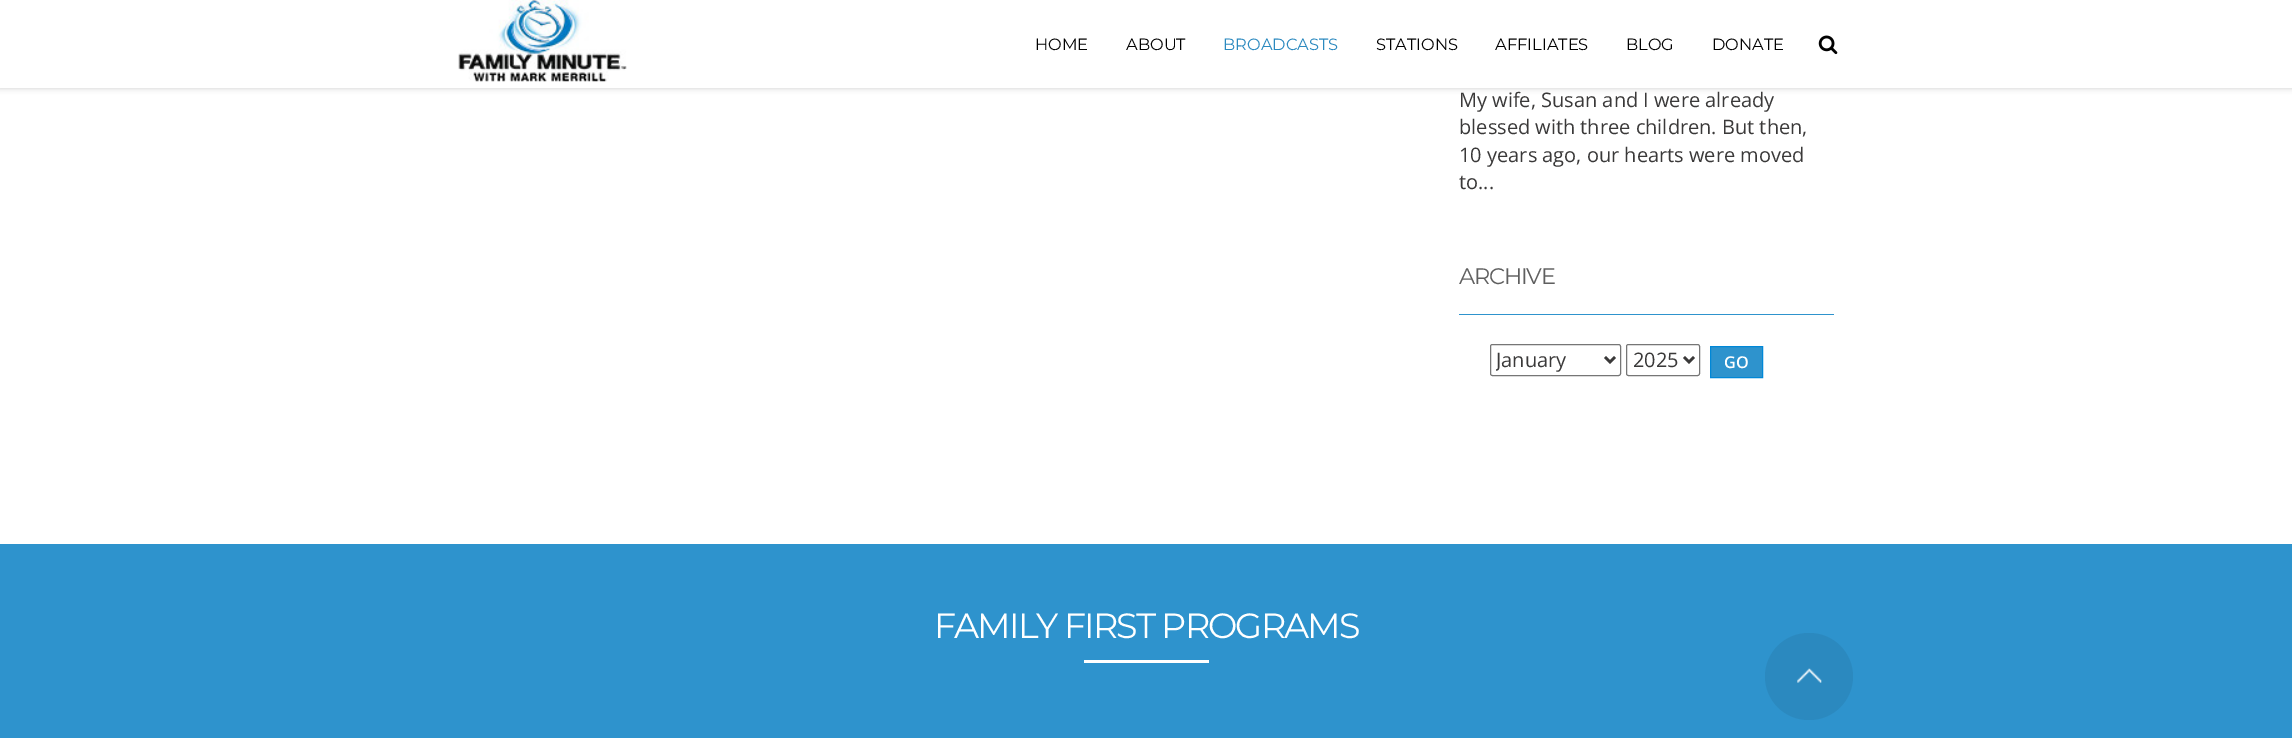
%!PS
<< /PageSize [2292 738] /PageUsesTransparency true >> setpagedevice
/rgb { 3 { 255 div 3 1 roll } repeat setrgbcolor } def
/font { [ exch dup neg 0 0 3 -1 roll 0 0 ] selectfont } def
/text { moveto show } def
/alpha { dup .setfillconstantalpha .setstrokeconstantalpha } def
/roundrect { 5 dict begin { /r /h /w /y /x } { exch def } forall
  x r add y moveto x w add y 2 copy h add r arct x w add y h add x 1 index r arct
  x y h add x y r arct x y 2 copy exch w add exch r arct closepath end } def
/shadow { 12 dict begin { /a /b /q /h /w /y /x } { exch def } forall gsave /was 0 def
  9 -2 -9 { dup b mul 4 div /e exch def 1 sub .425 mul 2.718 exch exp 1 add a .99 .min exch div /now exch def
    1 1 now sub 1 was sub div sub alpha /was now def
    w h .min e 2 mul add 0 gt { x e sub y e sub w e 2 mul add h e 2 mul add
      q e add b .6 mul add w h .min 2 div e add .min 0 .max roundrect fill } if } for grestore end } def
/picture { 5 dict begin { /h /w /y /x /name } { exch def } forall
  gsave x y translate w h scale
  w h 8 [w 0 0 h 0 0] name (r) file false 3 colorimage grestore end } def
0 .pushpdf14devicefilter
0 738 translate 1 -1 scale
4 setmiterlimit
255 255 255 rgb
0 0 2292 738 rectfill
0 0 0 rgb
0 0 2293 88 0 3 0.2 shadow
255 255 255 rgb
0 0 2292 88 rectfill
(img_01.rgb) 458 0 169 82 picture
(img_02.rgb) 1818 35 20 20 picture
46 147 205 rgb
1459 314 375 1 rectfill
118 118 118 rgb
1490.5 344.5 130 31 2 roundrect stroke
58 57 57 rgb
2.5 setlinewidth
1605 357 moveto 5 5 rlineto 5 -5 rlineto stroke
118 118 118 rgb
1 setlinewidth
1626.5 344.5 73 31 2 roundrect stroke
58 57 57 rgb
2.5 setlinewidth
1684 357 moveto 5 5 rlineto 5 -5 rlineto stroke
46 147 205 rgb
1710.5 346.5 moveto 52 0 rlineto 0 31 rlineto -52 0 rlineto closepath gsave fill grestore
0 135 215 rgb
1 setlinewidth
stroke
46 147 205 rgb
0 544 2292 194 rectfill
255 255 255 rgb
1084 660 125 3 rectfill
43 137 191 rgb
1765 633 88 87 43.5 roundrect fill
(img_03.rgb) 1797 668 25 15 picture
/Montserrat-Regular 16.25 font
1 1 1 rgb
(HOME) 1035 50 text
(ABOUT) 1126 50 text
43 137 191 rgb
(BROADCASTS) 1223 50 text
1 1 1 rgb
(STATIONS) 1376 50 text
(AFFILIATES) 1495 50 text
(BLOG) 1626 50 text
(DONATE) 1712 50 text
/OpenSans-Regular 20 font
58 57 57 rgb
(My wife, Susan and I were already) 1459 107 text
(blessed with three children. But then,) 1459 134 text
(10 years ago, our hearts were moved) 1459 162 text
(to...) 1459 189 text
/Montserrat-Regular 22.5 font
95 95 95 rgb
1459 284 moveto -1.25 0 (ARCHIVE) ashow
gsave
1496 345 104 30 rectclip
/OpenSans-Regular 20 font
58 57 57 rgb
(January) 1496 367 text
grestore
/OpenSans-Regular 20 font
58 57 57 rgb
(2025) 1633 367 text
/OpenSans-SemiBold 16.25 font
255 255 255 rgb
(GO) 1724 368 text
/Montserrat-Regular 35 font
934 638 moveto -1.9 0 (FAMILY FIRST PROGRAMS) ashow
.poppdf14devicefilter showpage
